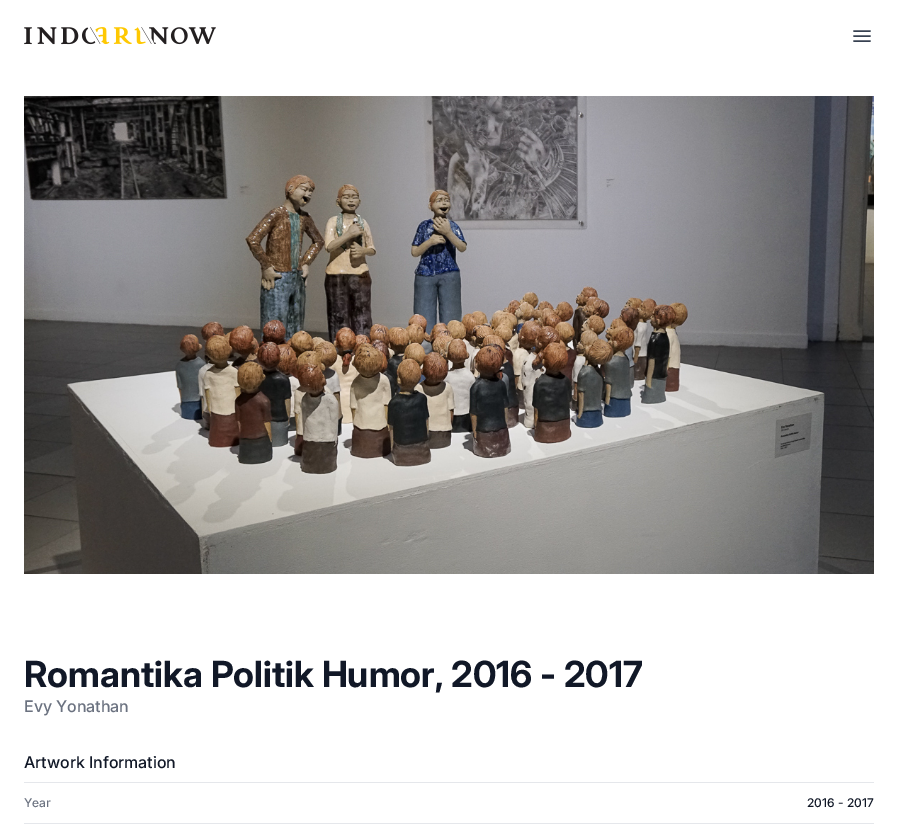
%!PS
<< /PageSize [898 833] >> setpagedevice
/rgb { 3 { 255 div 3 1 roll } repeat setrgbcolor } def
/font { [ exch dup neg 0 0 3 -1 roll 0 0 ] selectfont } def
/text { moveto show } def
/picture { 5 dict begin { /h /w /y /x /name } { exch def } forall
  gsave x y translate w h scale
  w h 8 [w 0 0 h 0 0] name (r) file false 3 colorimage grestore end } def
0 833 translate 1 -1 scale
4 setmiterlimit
255 255 255 rgb
0 0 898 833 rectfill
(img_01.rgb) 24 27 192 18 picture
55 65 81 rgb
1.5 setlinewidth
1 setlinecap
1 setlinejoin
854 31 moveto 16 0 rlineto 854 36 moveto 16 0 rlineto 854 41 moveto 16 0 rlineto stroke
(img_02.rgb) 24 96 850 478 picture
229 231 235 rgb
24 782 850 1 rectfill
24 823 850 1 rectfill
/Inter-Bold 36 font
17 24 39 rgb
(Romantika Politik Humor, 2016 - 2017) 24 687 text
/Inter-Medium 16 font
107 114 128 rgb
(Evy Yonathan) 24 712 text
17 24 39 rgb
(Artwork Information) 24 768 text
/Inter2-Medium 12 font
107 114 128 rgb
(Year) 24 807 text
17 24 39 rgb
(2016 - 2017) 807 807 text
showpage
